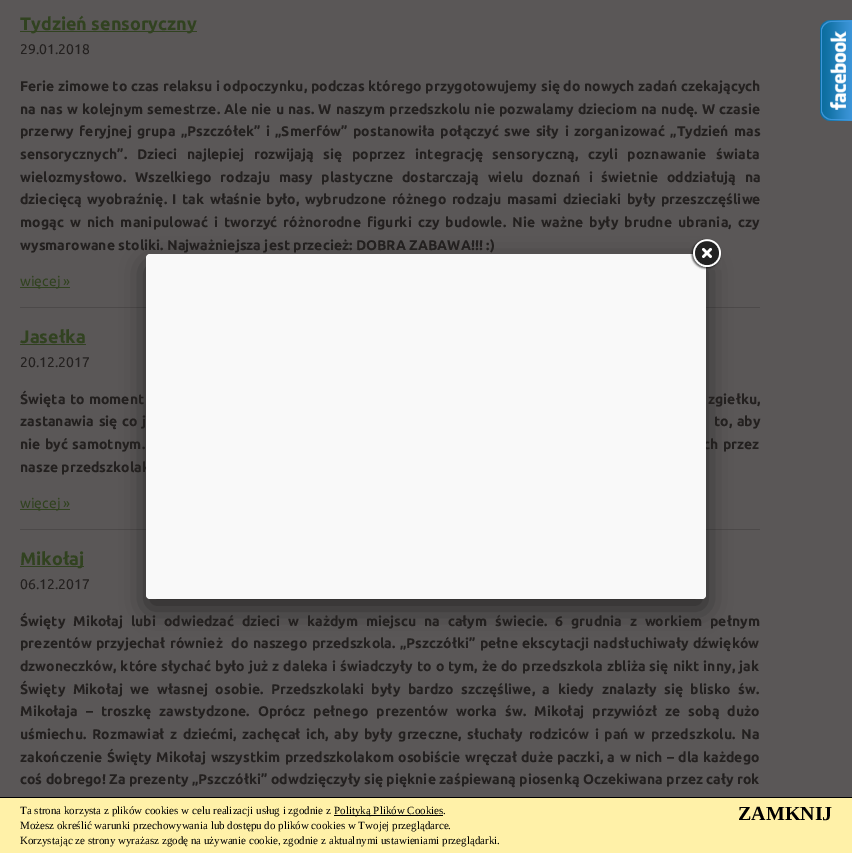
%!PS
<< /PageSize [852 853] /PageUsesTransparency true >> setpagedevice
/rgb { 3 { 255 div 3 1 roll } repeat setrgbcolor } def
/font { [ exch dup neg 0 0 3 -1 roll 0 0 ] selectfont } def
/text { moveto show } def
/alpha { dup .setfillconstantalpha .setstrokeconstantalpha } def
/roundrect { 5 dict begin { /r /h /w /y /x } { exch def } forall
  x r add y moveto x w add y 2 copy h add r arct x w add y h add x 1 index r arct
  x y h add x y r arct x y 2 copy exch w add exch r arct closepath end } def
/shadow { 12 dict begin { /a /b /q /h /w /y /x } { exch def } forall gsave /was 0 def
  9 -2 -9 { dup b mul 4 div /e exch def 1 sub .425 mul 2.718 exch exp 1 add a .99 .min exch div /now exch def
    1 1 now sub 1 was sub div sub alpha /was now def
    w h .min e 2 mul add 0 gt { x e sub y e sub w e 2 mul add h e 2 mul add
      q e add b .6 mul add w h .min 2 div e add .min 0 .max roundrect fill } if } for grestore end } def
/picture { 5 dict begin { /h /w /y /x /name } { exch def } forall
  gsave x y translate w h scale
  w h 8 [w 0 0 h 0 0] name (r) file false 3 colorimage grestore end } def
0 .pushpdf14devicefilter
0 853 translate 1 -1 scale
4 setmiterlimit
90 87 87 rgb
0 0 852 853 rectfill
49 66 32 rgb
20 31 177 1 rectfill
20 287 50 1 rectfill
76 73 73 rgb
20 307 740 1 rectfill
49 66 32 rgb
20 344 66 1 rectfill
20 509 50 1 rectfill
76 73 73 rgb
20 529 740 1 rectfill
49 66 32 rgb
20 566 64 1 rectfill
(img_01.rgb) 820 20 32 101 picture
0 0 0 rgb
146 264 560 345 4 12.5 0.5 shadow
255 241 168 rgb
0 798 852 55 rectfill
0 0 0 rgb
0 797 852 1 rectfill
334 815 109 1 rectfill
/Ubuntu-Bold 18 font
49 66 32 rgb
(Tydzień sensoryczny) 20 30 text
/Ubuntu-Regular 14 font
35 32 31 rgb
(29.01.2018) 20 54 text
/Ubuntu-Bold 14 font
20 91 moveto 0.25 0 32 (Ferie zimowe to czas relaksu i odpoczynku, podczas którego przygotowujemy się do nowych zadań czekających) widthshow
20 114 moveto 0.75 0 32 (na nas w kolejnym semestrze. Ale nie u nas. W naszym przedszkolu nie pozwalamy dzieciom na nudę. W czasie) widthshow
20 136 moveto 2 0 32 (przerwy feryjnej grupa „Pszczółek” i „Smerfów” postanowiła połączyć swe siły i zorganizować „Tydzień mas) widthshow
20 159 moveto 6.25 0 32 (sensorycznych”. Dzieci najlepiej rozwijają się poprzez integrację sensoryczną, czyli poznawanie świata) widthshow
20 182 moveto 5.25 0 32 (wielozmysłowo. Wszelkiego rodzaju masy plastyczne dostarczają wielu doznań i świetnie oddziałują na) widthshow
20 204 moveto 2 0 32 (dziecięcą wyobraźnię. I tak właśnie było, wybrudzone różnego rodzaju masami dzieciaki były przeszczęśliwe) widthshow
20 227 moveto 2.75 0 32 (mogąc w nich manipulować i tworzyć różnorodne figurki czy budowle. Nie ważne były brudne ubrania, czy) widthshow
(wysmarowane stoliki. Najważniejsza jest przecież: DOBRA ZABAWA!!! :\)) 20 250 text
/Ubuntu-Regular 14 font
49 66 32 rgb
(więcej ») 20 286 text
/Ubuntu-Bold 18 font
(Jasełka) 20 343 text
/Ubuntu-Regular 14 font
35 32 31 rgb
(20.12.2017) 20 367 text
/Ubuntu-Bold 14 font
20 404 moveto 1 0 32 (Święta to moment) widthshow
708 404 moveto 1 0 32 (zgiełku,) widthshow
20 426 moveto 1 0 32 (zastanawia się co j) widthshow
714 426 moveto 1 0 32 (to, aby) widthshow
20 449 moveto 1 0 32 (nie być samotnym.) widthshow
703 449 moveto 1 0 32 (ch przez) widthshow
(nasze przedszkolak) 20 472 text
/Ubuntu-Regular 14 font
49 66 32 rgb
(więcej ») 20 508 text
/Ubuntu-Bold 18 font
(Mikołaj) 20 565 text
/Ubuntu-Regular 14 font
35 32 31 rgb
(06.12.2017) 20 589 text
/Ubuntu-Bold 14 font
20 626 moveto 4.4 0 32 (Święty Mikołaj lubi odwiedzać dzieci w każdym miejscu na całym świecie. 6 grudnia z workiem pełnym) widthshow
20 648 moveto 1 0 32 (prezentów przyjechał również  do naszego przedszkola. „Pszczółki” pełne ekscytacji nadsłuchiwały dźwięków) widthshow
20 671 moveto 0.75 0 32 (dzwoneczków, które słychać było już z daleka i świadczyły to o tym, że do przedszkola zbliża się nikt inny, jak) widthshow
20 694 moveto 4.1 0 32 (Święty Mikołaj we własnej osobie. Przedszkolaki były bardzo szczęśliwe, a kiedy znalazły się blisko św.) widthshow
20 716 moveto 4.6 0 32 (Mikołaja – troszkę zawstydzone. Oprócz pełnego prezentów worka św. Mikołaj przywiózł ze sobą dużo) widthshow
20 739 moveto 2.25 0 32 (uśmiechu. Rozmawiał z dziećmi, zachęcał ich, aby były grzeczne, słuchały rodziców i pań w przedszkolu. Na) widthshow
20 762 moveto 1 0 32 (zakończenie Święty Mikołaj wszystkim przedszkolakom osobiście wręczał duże paczki, a w nich – dla każdego) widthshow
(coś dobrego! Za prezenty „Pszczółki” odwdzięczyły się pięknie zaśpiewaną piosenką Oczekiwana przez cały rok) 20 784 text
249 249 249 rgb
146 254 560 345 4 roundrect fill
(img_02.rgb) 690 238 32 32 picture
/LiberationSerif-Regular 11 font
0 0 0 rgb
(Ta strona korzysta z plików cookies w celu realizacji usług i zgodnie z) 20 814 text
(Polityką Plików Cookies.) 334 814 text
(Możesz określić warunki przechowywania lub dostępu do plików cookies w Twojej przeglądarce.) 20 829 text
(Korzystając ze strony wyrażasz zgodę na używanie cookie, zgodnie z aktualnymi ustawieniami przeglądarki.) 20 844 text
/LiberationSerif-Bold 20 font
(ZAMKNIJ) 738 820 text
.poppdf14devicefilter showpage
